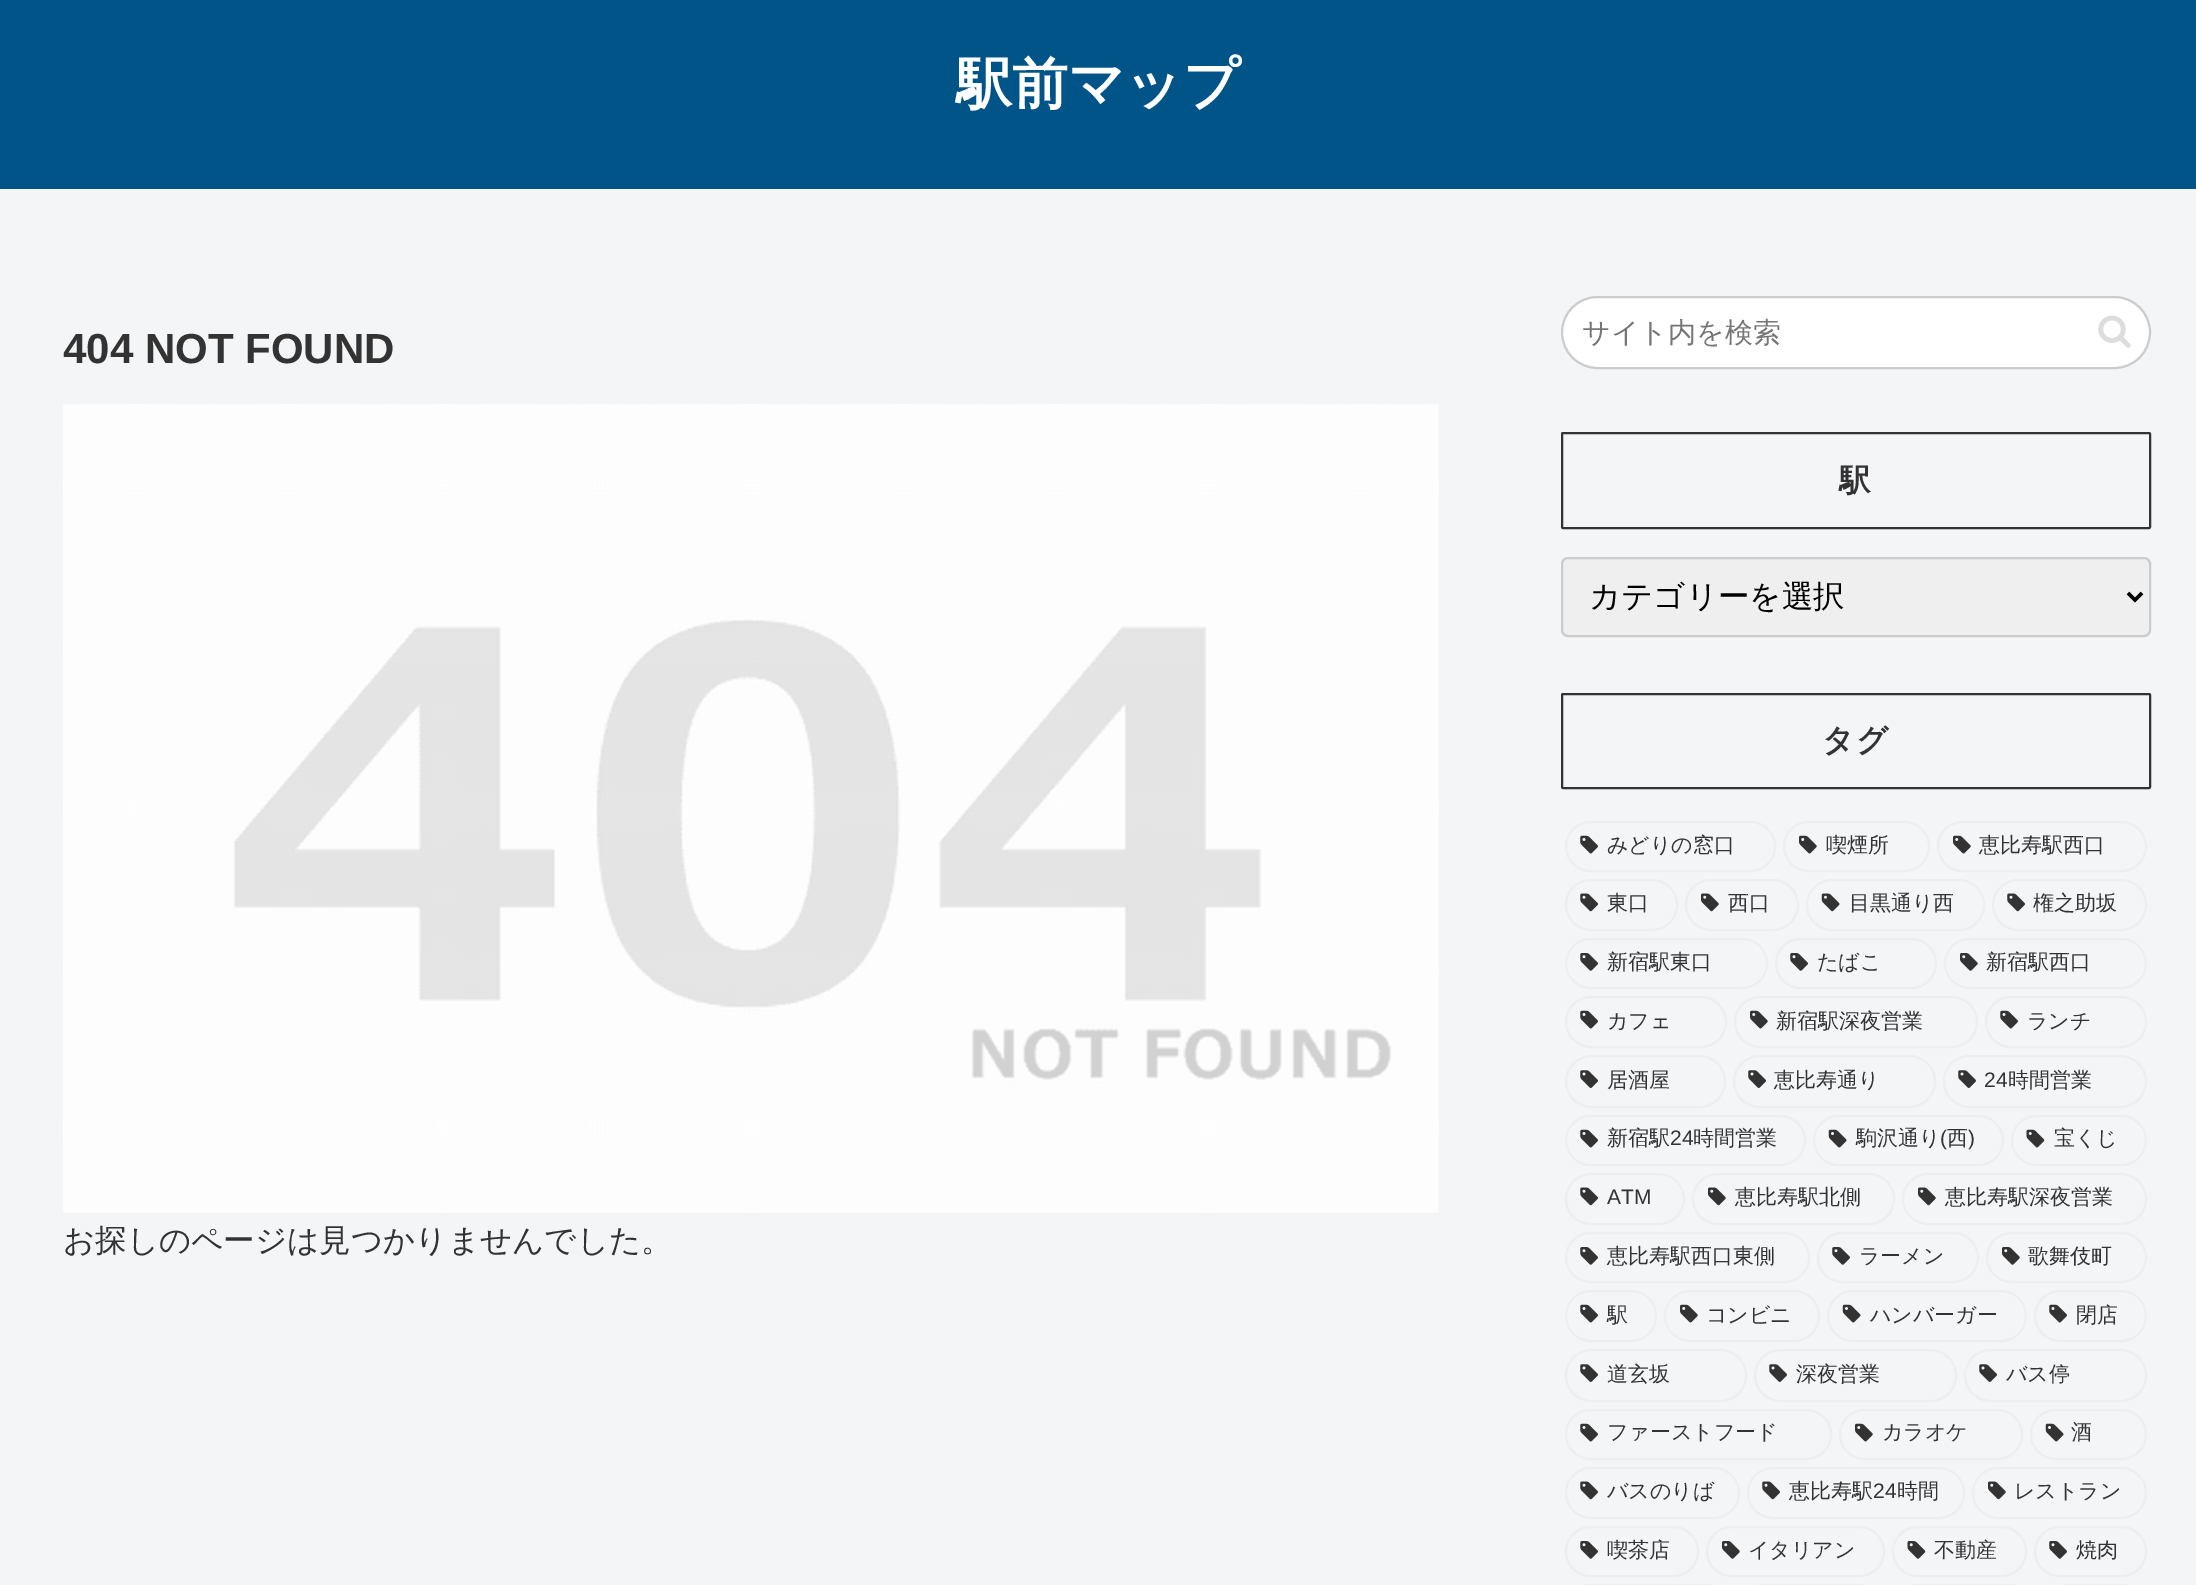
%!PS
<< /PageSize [2196 1585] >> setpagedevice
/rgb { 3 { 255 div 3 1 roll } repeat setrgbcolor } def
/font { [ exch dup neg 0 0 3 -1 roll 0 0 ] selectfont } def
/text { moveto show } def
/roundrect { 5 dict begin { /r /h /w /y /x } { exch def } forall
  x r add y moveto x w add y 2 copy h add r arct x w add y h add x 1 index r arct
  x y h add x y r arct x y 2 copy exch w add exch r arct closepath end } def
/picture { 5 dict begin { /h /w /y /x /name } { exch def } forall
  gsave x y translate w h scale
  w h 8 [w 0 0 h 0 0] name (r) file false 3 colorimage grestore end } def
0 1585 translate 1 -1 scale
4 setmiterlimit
244 245 247 rgb
0 0 2196 1585 rectfill
0 84 136 rgb
0 0 2196 189 rectfill
(img_01.rgb) 63 404 1376 809 picture
255 255 255 rgb
1562 297 588 71 35.5 roundrect gsave fill grestore
204 204 204 rgb
2 setlinewidth
stroke
(img_02.rgb) 2098 315 33 33 picture
51 51 51 rgb
1562 433 588 95 1 roundrect stroke
239 239 239 rgb
1562 558 588 78 6 roundrect gsave fill grestore
204 204 204 rgb
stroke
0 0 0 rgb
3.5 setlinewidth
2128 593 moveto 7 7 rlineto 7 -7 rlineto stroke
51 51 51 rgb
2 setlinewidth
1562 694 588 94 1 roundrect stroke
238 238 238 rgb
1566 822 209 49 24.5 roundrect stroke
(img_03.rgb) 1580 835 18 19 picture
1784 822 145 49 24.5 roundrect stroke
(img_04.rgb) 1799 835 18 19 picture
1938 822 208 49 24.5 roundrect stroke
(img_04.rgb) 1953 835 18 19 picture
1566 880 111 50 25 roundrect stroke
(img_05.rgb) 1580 893 18 19 picture
1686 880 112 50 25 roundrect stroke
(img_06.rgb) 1701 893 18 19 picture
1807 880 177 50 25 roundrect stroke
(img_07.rgb) 1821 893 19 19 picture
1993 880 153 50 25 roundrect stroke
(img_08.rgb) 2007 893 18 19 picture
1566 939 201 49 24.5 roundrect stroke
(img_09.rgb) 1580 953 18 18 picture
1776 939 160 49 24.5 roundrect stroke
(img_10.rgb) 1790 953 18 18 picture
1945 939 201 49 24.5 roundrect stroke
(img_11.rgb) 1960 953 18 18 picture
1566 997 160 50 25 roundrect stroke
(img_12.rgb) 1580 1010 18 19 picture
1735 997 242 50 25 roundrect stroke
(img_04.rgb) 1750 1010 18 19 picture
1986 997 160 50 25 roundrect stroke
(img_12.rgb) 2000 1010 18 19 picture
1566 1056 159 51 25.5 roundrect stroke
(img_13.rgb) 1580 1070 18 18 picture
1734 1056 201 51 25.5 roundrect stroke
(img_13.rgb) 1748 1070 18 18 picture
1944 1056 202 51 25.5 roundrect stroke
(img_14.rgb) 1958 1070 18 18 picture
1566 1116 239 49 24.5 roundrect stroke
(img_03.rgb) 1580 1129 18 19 picture
1814 1116 189 49 24.5 roundrect stroke
(img_15.rgb) 1828 1129 19 19 picture
2012 1116 134 49 24.5 roundrect stroke
(img_16.rgb) 2026 1129 19 19 picture
1566 1174 118 50 25 roundrect stroke
(img_05.rgb) 1580 1187 18 19 picture
1693 1174 201 50 25 roundrect stroke
(img_06.rgb) 1708 1187 18 19 picture
1903 1174 243 50 25 roundrect stroke
(img_17.rgb) 1918 1187 18 19 picture
1566 1233 243 49 24.5 roundrect stroke
(img_18.rgb) 1580 1247 18 18 picture
1818 1233 160 49 24.5 roundrect stroke
(img_19.rgb) 1832 1247 18 18 picture
1987 1233 159 49 24.5 roundrect stroke
(img_11.rgb) 2002 1247 18 18 picture
1566 1291 90 50 25 roundrect stroke
(img_03.rgb) 1580 1304 18 19 picture
1665 1291 154 50 25 roundrect stroke
(img_04.rgb) 1680 1304 18 19 picture
1828 1291 198 50 25 roundrect stroke
(img_15.rgb) 1842 1304 19 19 picture
2035 1291 111 50 25 roundrect stroke
(img_03.rgb) 2049 1304 18 19 picture
1566 1350 180 51 25.5 roundrect stroke
(img_13.rgb) 1580 1364 18 18 picture
1755 1350 201 51 25.5 roundrect stroke
(img_13.rgb) 1769 1364 18 18 picture
1965 1350 181 51 25.5 roundrect stroke
(img_14.rgb) 1979 1364 18 18 picture
1566 1410 265 49 24.5 roundrect stroke
(img_03.rgb) 1580 1423 18 19 picture
1840 1410 182 49 24.5 roundrect stroke
(img_04.rgb) 1855 1423 18 19 picture
2031 1410 115 49 24.5 roundrect stroke
(img_20.rgb) 2045 1423 19 19 picture
1566 1468 173 50 25 roundrect stroke
(img_05.rgb) 1580 1481 18 19 picture
1748 1468 216 50 25 roundrect stroke
(img_05.rgb) 1762 1481 18 19 picture
1973 1468 173 50 25 roundrect stroke
(img_17.rgb) 1988 1481 18 19 picture
1566 1527 132 49 24.5 roundrect stroke
(img_18.rgb) 1580 1541 18 18 picture
1707 1527 177 49 24.5 roundrect stroke
(img_21.rgb) 1722 1541 18 18 picture
1893 1527 133 49 24.5 roundrect stroke
(img_22.rgb) 1907 1541 19 18 picture
2035 1527 111 49 24.5 roundrect stroke
(img_18.rgb) 2049 1541 18 18 picture
1566 1585 164 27 25 roundrect stroke
1739 1585 145 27 25 roundrect stroke
1893 1585 143 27 25 roundrect stroke
2045 1585 101 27 25 roundrect stroke
/WenQuanYiZenHei-Bold 56 font
255 255 255 rgb
(駅前マップ) 956 103 text
/LiberationSans-Bold 42 font
51 51 51 rgb
(404 NOT FOUND) 63 363 text
/WenQuanYiZenHei-Medium 31.5 font
(お探しのページは見つかりませんでした。) 63 1251 text
/WenQuanYiZenHei-Medium 28 font
117 117 117 rgb
(サイト内を検索) 1582 342 text
/WenQuanYiZenHei-Bold 31.5 font
51 51 51 rgb
1839 491 moveto 2 0 (駅) ashow
/WenQuanYiZenHei-Medium 31.5 font
0 0 0 rgb
(カテゴリーを選択) 1589 607 text
/WenQuanYiZenHei-Bold 31.5 font
51 51 51 rgb
1822 751 moveto 2 0 (タグ) ashow
/WenQuanYiZenHei-Medium 21 font
(みどりの窓口) 1607 852 text
(喫煙所) 1826 852 text
(恵比寿駅西口) 1979 852 text
(東口) 1607 910 text
(西口) 1728 910 text
(目黒通り西) 1849 910 text
(権之助坂) 2033 910 text
(新宿駅東口) 1607 969 text
(たばこ) 1817 969 text
(新宿駅西口) 1986 969 text
(カフェ) 1607 1028 text
(新宿駅深夜営業) 1776 1028 text
(ランチ) 2027 1028 text
(居酒屋) 1607 1087 text
(恵比寿通り) 1774 1087 text
/LiberationSans-Regular 21 font
(24) 1984 1087 text
/WenQuanYiZenHei-Medium 21 font
(時間営業) 2008 1087 text
(新宿駅) 1607 1145 text
/LiberationSans-Regular 21 font
(24) 1670 1145 text
/WenQuanYiZenHei-Medium 21 font
(時間営業) 1693 1145 text
(駒沢通り) 1856 1145 text
/LiberationSans-Regular 21 font
(\() 1940 1145 text
/WenQuanYiZenHei-Medium 21 font
(西) 1947 1145 text
/LiberationSans-Regular 21 font
(\)) 1968 1145 text
/WenQuanYiZenHei-Medium 21 font
(宝くじ) 2054 1145 text
/LiberationSans-Regular 21 font
(ATM) 1607 1204 text
/WenQuanYiZenHei-Medium 21 font
(恵比寿駅北側) 1735 1204 text
(恵比寿駅深夜営業) 1945 1204 text
(恵比寿駅西口東側) 1607 1263 text
(ラーメン) 1859 1263 text
(歌舞伎町) 2028 1263 text
(駅) 1607 1322 text
(コンビニ) 1706 1322 text
(ハンバーガー) 1870 1322 text
(閉店) 2076 1322 text
(道玄坂) 1607 1381 text
(深夜営業) 1796 1381 text
(バス停) 2006 1381 text
(ファーストフード) 1607 1439 text
(カラオケ) 1882 1439 text
(酒) 2071 1439 text
(バスのりば) 1607 1498 text
(恵比寿駅) 1789 1498 text
/LiberationSans-Regular 21 font
(24) 1873 1498 text
/WenQuanYiZenHei-Medium 21 font
(時間) 1897 1498 text
(レストラン) 2014 1498 text
(喫茶店) 1607 1557 text
(イタリアン) 1748 1557 text
(不動産) 1934 1557 text
(焼肉) 2076 1557 text
showpage
